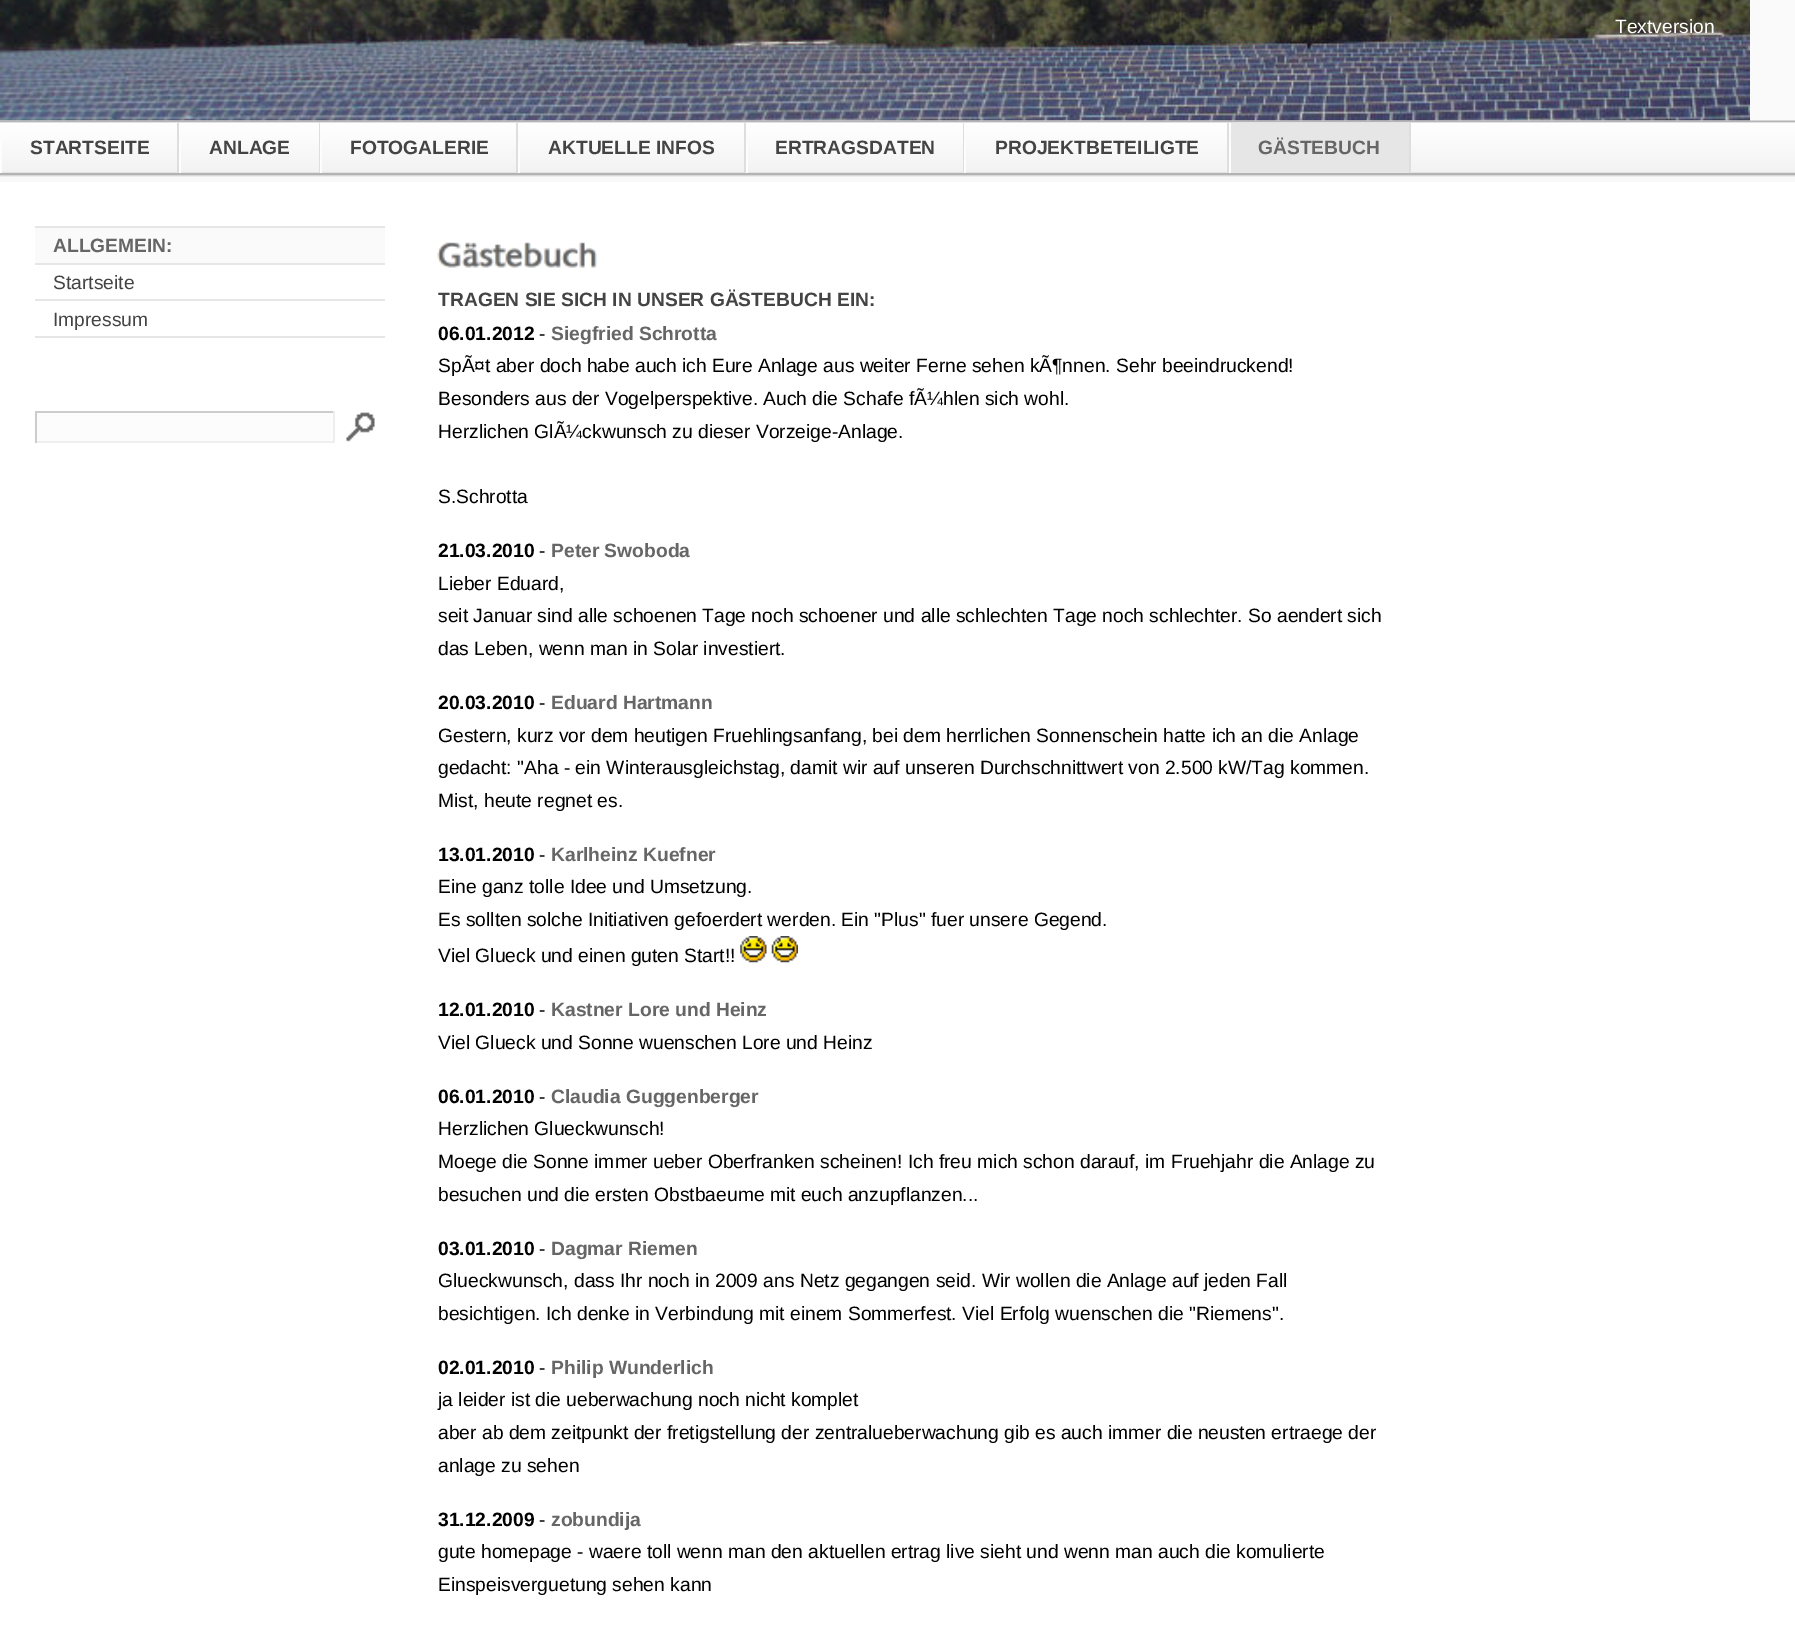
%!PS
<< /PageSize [1795 1626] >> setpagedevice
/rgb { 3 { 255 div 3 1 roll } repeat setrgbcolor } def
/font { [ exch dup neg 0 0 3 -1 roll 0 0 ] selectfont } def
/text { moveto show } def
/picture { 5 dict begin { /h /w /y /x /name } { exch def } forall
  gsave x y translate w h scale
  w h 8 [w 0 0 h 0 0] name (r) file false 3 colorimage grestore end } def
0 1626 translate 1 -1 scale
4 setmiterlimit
255 255 255 rgb
0 0 1795 1626 rectfill
250 250 250 rgb
0 0 1795 121 rectfill
(img_01.rgb) 0 0 1750 121 picture
249 249 249 rgb
0 176 1795 6 rectfill
(img_02.rgb) 0 120 1795 57 picture
222 222 222 rgb
177 123 2 50 rectfill
253 253 253 rgb
0 141 2 32 rectfill
222 222 222 rgb
319 123 1 50 rectfill
253 253 253 rgb
179 141 2 32 rectfill
222 222 222 rgb
516 123 2 50 rectfill
253 253 253 rgb
320 141 2 32 rectfill
222 222 222 rgb
744 123 2 50 rectfill
253 253 253 rgb
518 141 2 32 rectfill
222 222 222 rgb
963 123 1 50 rectfill
253 253 253 rgb
746 141 2 32 rectfill
222 222 222 rgb
1227 123 2 50 rectfill
253 253 253 rgb
964 141 2 32 rectfill
230 230 230 rgb
1231 123 178 50 rectfill
222 222 222 rgb
1409 123 2 50 rectfill
253 253 253 rgb
1229 141 2 32 rectfill
250 250 250 rgb
35 228 350 35 rectfill
230 230 230 rgb
35 226 350 2 rectfill
35 263 350 2 rectfill
35 299 350 2 rectfill
35 336 350 2 rectfill
252 252 252 rgb
37 413 296 28 rectfill
204 204 204 rgb
35 411 299 2 rectfill
238 238 238 rgb
333 411 2 32 rectfill
35 441 299 2 rectfill
204 204 204 rgb
35 411 2 32 rectfill
(img_03.rgb) 346 412 29 30 picture
(img_04.rgb) 437 242 160 26 picture
(img_05.rgb) 740 936 27 27 picture
(img_06.rgb) 771 936 27 27 picture
/LiberationSans-Regular 19.25 font
255 255 255 rgb
(Textversion) 1615 33 text
/LiberationSans-Bold 19.25 font
68 68 68 rgb
(STARTSEITE) 30 154 text
(ANLAGE) 209 154 text
(FOTOGALERIE) 350 154 text
(AKTUELLE INFOS) 548 154 text
(ERTRAGSDATEN) 775 154 text
(PROJEKTBETEILIGTE) 995 154 text
102 102 102 rgb
(GÄSTEBUCH) 1258 154 text
(ALLGEMEIN:) 53 252 text
/LiberationSans-Regular 19.25 font
68 68 68 rgb
(Startseite) 53 289 text
(Impressum) 53 326 text
/LiberationSans-Bold 19.25 font
(TRAGEN SIE SICH IN UNSER GÄSTEBUCH EIN:) 438 306 text
0 0 0 rgb
(06.01.2012) 438 340 text
/LiberationSans-Regular 19.25 font
(-) 539 340 text
/LiberationSans-Bold 19.25 font
102 102 102 rgb
(Siegfried Schrotta) 551 340 text
/LiberationSans-Regular 19.25 font
0 0 0 rgb
(SpÃ¤t aber doch habe auch ich Eure Anlage aus weiter Ferne sehen kÃ¶nnen. Sehr beeindruckend!) 438 372 text
(Besonders aus der Vogelperspektive. Auch die Schafe fÃ¼hlen sich wohl.) 438 405 text
(Herzlichen GlÃ¼ckwunsch zu dieser Vorzeige-Anlage.) 438 438 text
(S.Schrotta) 438 503 text
/LiberationSans-Bold 19.25 font
(21.03.2010) 438 557 text
/LiberationSans-Regular 19.25 font
(-) 539 557 text
/LiberationSans-Bold 19.25 font
102 102 102 rgb
(Peter Swoboda) 551 557 text
/LiberationSans-Regular 19.25 font
0 0 0 rgb
(Lieber Eduard,) 438 590 text
(seit Januar sind alle schoenen Tage noch schoener und alle schlechten Tage noch schlechter. So aendert sich) 438 622 text
(das Leben, wenn man in Solar investiert.) 438 655 text
/LiberationSans-Bold 19.25 font
(20.03.2010) 438 709 text
/LiberationSans-Regular 19.25 font
(-) 539 709 text
/LiberationSans-Bold 19.25 font
102 102 102 rgb
(Eduard Hartmann) 551 709 text
/LiberationSans-Regular 19.25 font
0 0 0 rgb
(Gestern, kurz vor dem heutigen Fruehlingsanfang, bei dem herrlichen Sonnenschein hatte ich an die Anlage) 438 742 text
(gedacht: "Aha - ein Winterausgleichstag, damit wir auf unseren Durchschnittwert von 2.500 kW/Tag kommen.) 438 774 text
(Mist, heute regnet es.) 438 807 text
/LiberationSans-Bold 19.25 font
(13.01.2010) 438 861 text
/LiberationSans-Regular 19.25 font
(-) 539 861 text
/LiberationSans-Bold 19.25 font
102 102 102 rgb
(Karlheinz Kuefner) 551 861 text
/LiberationSans-Regular 19.25 font
0 0 0 rgb
(Eine ganz tolle Idee und Umsetzung.) 438 893 text
(Es sollten solche Initiativen gefoerdert werden. Ein "Plus" fuer unsere Gegend.) 438 926 text
(Viel Glueck und einen guten Start!!) 438 962 text
/LiberationSans-Bold 19.25 font
(12.01.2010) 438 1016 text
/LiberationSans-Regular 19.25 font
(-) 539 1016 text
/LiberationSans-Bold 19.25 font
102 102 102 rgb
(Kastner Lore und Heinz) 551 1016 text
/LiberationSans-Regular 19.25 font
0 0 0 rgb
(Viel Glueck und Sonne wuenschen Lore und Heinz) 438 1049 text
/LiberationSans-Bold 19.25 font
(06.01.2010) 438 1103 text
/LiberationSans-Regular 19.25 font
(-) 539 1103 text
/LiberationSans-Bold 19.25 font
102 102 102 rgb
(Claudia Guggenberger) 551 1103 text
/LiberationSans-Regular 19.25 font
0 0 0 rgb
(Herzlichen Glueckwunsch!) 438 1135 text
(Moege die Sonne immer ueber Oberfranken scheinen! Ich freu mich schon darauf, im Fruehjahr die Anlage zu) 438 1168 text
(besuchen und die ersten Obstbaeume mit euch anzupflanzen...) 438 1201 text
/LiberationSans-Bold 19.25 font
(03.01.2010) 438 1255 text
/LiberationSans-Regular 19.25 font
(-) 539 1255 text
/LiberationSans-Bold 19.25 font
102 102 102 rgb
(Dagmar Riemen) 551 1255 text
/LiberationSans-Regular 19.25 font
0 0 0 rgb
(Glueckwunsch, dass Ihr noch in 2009 ans Netz gegangen seid. Wir wollen die Anlage auf jeden Fall) 438 1287 text
(besichtigen. Ich denke in Verbindung mit einem Sommerfest. Viel Erfolg wuenschen die "Riemens".) 438 1320 text
/LiberationSans-Bold 19.25 font
(02.01.2010) 438 1374 text
/LiberationSans-Regular 19.25 font
(-) 539 1374 text
/LiberationSans-Bold 19.25 font
102 102 102 rgb
(Philip Wunderlich) 551 1374 text
/LiberationSans-Regular 19.25 font
0 0 0 rgb
(ja leider ist die ueberwachung noch nicht komplet) 438 1406 text
(aber ab dem zeitpunkt der fretigstellung der zentralueberwachung gib es auch immer die neusten ertraege der) 438 1439 text
(anlage zu sehen) 438 1472 text
/LiberationSans-Bold 19.25 font
(31.12.2009) 438 1526 text
/LiberationSans-Regular 19.25 font
(-) 539 1526 text
/LiberationSans-Bold 19.25 font
102 102 102 rgb
(zobundija) 551 1526 text
/LiberationSans-Regular 19.25 font
0 0 0 rgb
(gute homepage - waere toll wenn man den aktuellen ertrag live sieht und wenn man auch die komulierte) 438 1558 text
(Einspeisverguetung sehen kann) 438 1591 text
showpage
